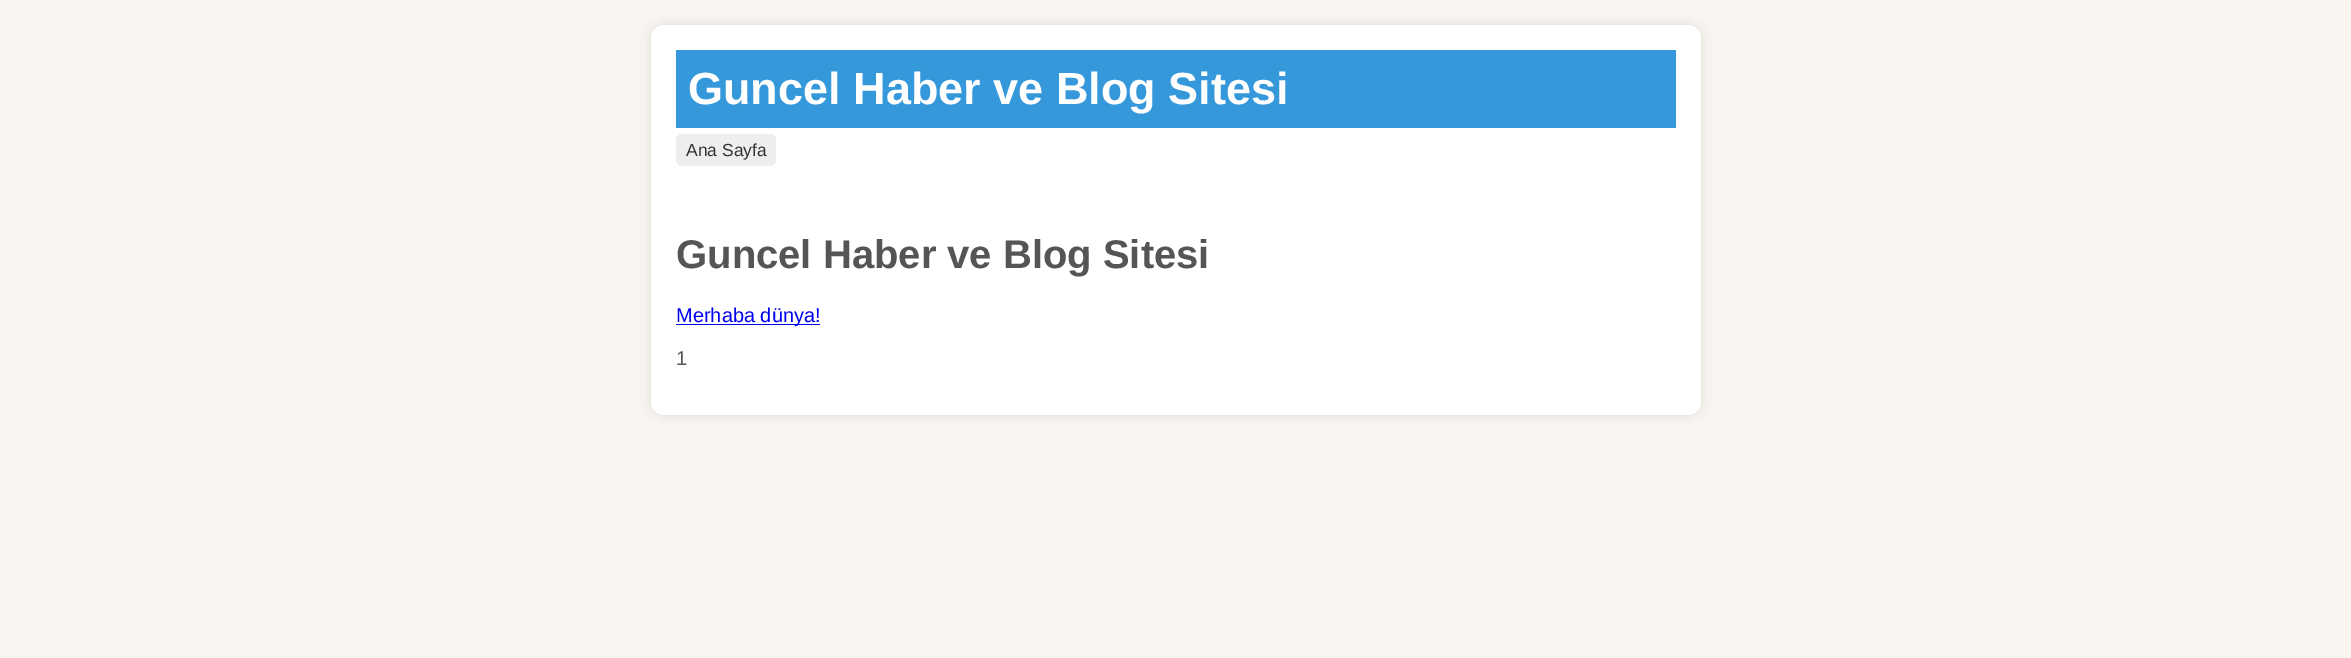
%!PS
<< /PageSize [2351 658] /PageUsesTransparency true >> setpagedevice
/rgb { 3 { 255 div 3 1 roll } repeat setrgbcolor } def
/font { [ exch dup neg 0 0 3 -1 roll 0 0 ] selectfont } def
/text { moveto show } def
/alpha { dup .setfillconstantalpha .setstrokeconstantalpha } def
/roundrect { 5 dict begin { /r /h /w /y /x } { exch def } forall
  x r add y moveto x w add y 2 copy h add r arct x w add y h add x 1 index r arct
  x y h add x y r arct x y 2 copy exch w add exch r arct closepath end } def
/shadow { 12 dict begin { /a /b /q /h /w /y /x } { exch def } forall gsave /was 0 def
  9 -2 -9 { dup b mul 4 div /e exch def 1 sub .425 mul 2.718 exch exp 1 add a .99 .min exch div /now exch def
    1 1 now sub 1 was sub div sub alpha /was now def
    w h .min e 2 mul add 0 gt { x e sub y e sub w e 2 mul add h e 2 mul add
      q e add b .6 mul add w h .min 2 div e add .min 0 .max roundrect fill } if } for grestore end } def
0 .pushpdf14devicefilter
0 658 translate 1 -1 scale
4 setmiterlimit
249 246 242 rgb
0 0 2351 658 rectfill
0 0 0 rgb
651 25 1050 390 13 6 0.1 shadow
255 255 255 rgb
651 25 1050 390 13 roundrect fill
52 152 219 rgb
676 50 1000 78 rectfill
238 238 238 rgb
676 134 100 32 6 roundrect fill
0 0 238 rgb
676 324 144 1 rectfill
/LiberationSans-Bold 45 font
255 255 255 rgb
(Guncel Haber ve Blog Sitesi) 688 104 text
/LiberationSans-Regular 17.5 font
51 51 51 rgb
(Ana Sayfa) 686 156 text
/LiberationSans-Bold 40 font
85 85 85 rgb
(Guncel Haber ve Blog Sitesi) 676 268 text
/LiberationSans-Regular 20 font
0 0 238 rgb
(Merhaba dünya!) 676 322 text
85 85 85 rgb
(1) 676 365 text
.poppdf14devicefilter showpage
